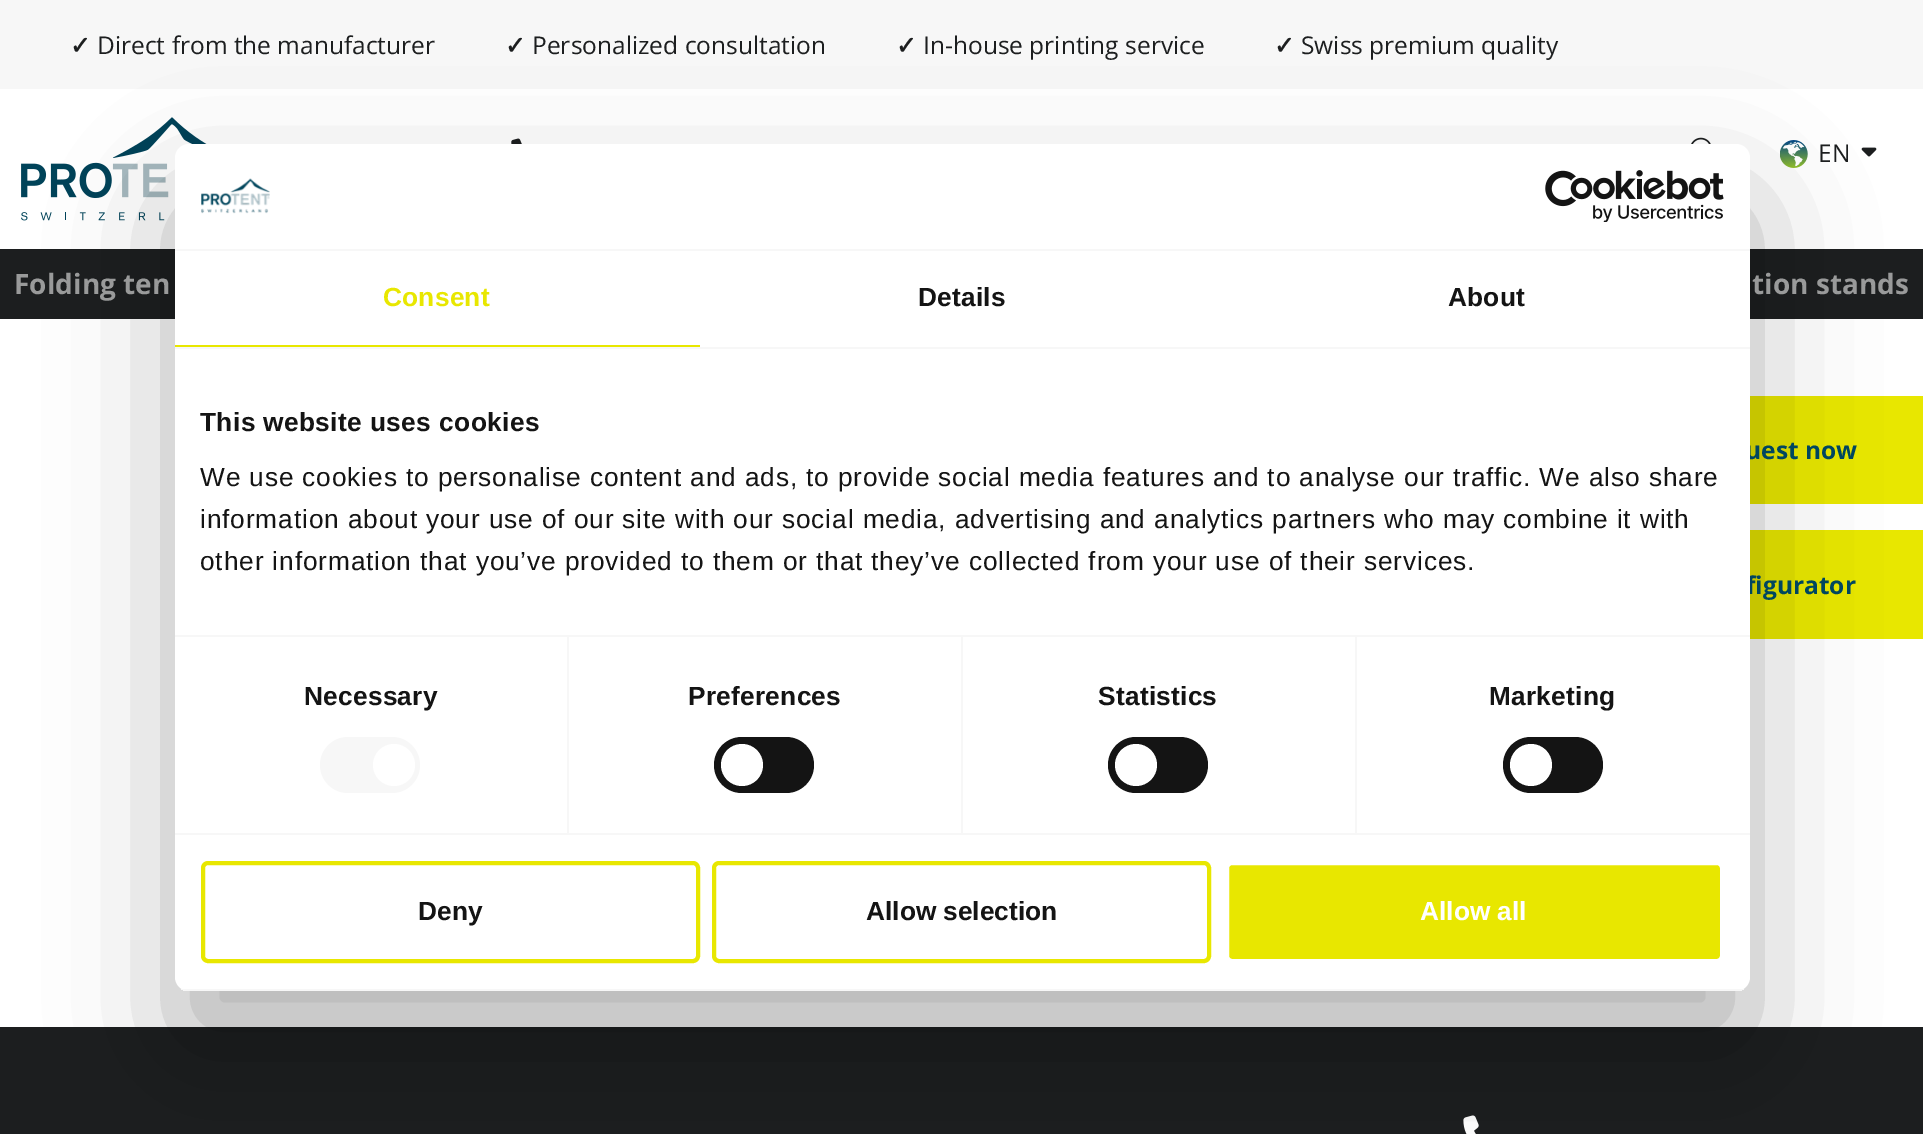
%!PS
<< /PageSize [1923 1134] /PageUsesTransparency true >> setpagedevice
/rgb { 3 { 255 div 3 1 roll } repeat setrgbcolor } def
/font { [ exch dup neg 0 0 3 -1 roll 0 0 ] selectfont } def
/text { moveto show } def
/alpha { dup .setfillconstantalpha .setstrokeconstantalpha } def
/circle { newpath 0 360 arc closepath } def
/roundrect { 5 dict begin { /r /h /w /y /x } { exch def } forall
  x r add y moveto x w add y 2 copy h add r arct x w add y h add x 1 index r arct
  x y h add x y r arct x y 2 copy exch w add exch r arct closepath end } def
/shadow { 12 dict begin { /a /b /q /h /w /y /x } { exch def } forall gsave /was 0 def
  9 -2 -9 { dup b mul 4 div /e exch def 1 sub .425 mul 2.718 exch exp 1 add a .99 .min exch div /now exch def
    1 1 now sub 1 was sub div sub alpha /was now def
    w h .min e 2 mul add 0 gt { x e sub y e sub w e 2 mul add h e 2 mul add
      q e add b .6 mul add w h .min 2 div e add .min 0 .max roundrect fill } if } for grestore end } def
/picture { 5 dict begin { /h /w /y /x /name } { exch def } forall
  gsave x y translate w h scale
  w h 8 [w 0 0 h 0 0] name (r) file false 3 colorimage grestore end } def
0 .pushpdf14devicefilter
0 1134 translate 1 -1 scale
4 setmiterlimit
255 255 255 rgb
0 0 1923 1134 rectfill
247 247 247 rgb
0 0 1923 89 rectfill
(img_01.rgb) 21 117 186 104 picture
(img_02.rgb) 511 138 11 6 picture
(img_03.rgb) 1691 137 20 7 picture
(img_04.rgb) 1780 140 28 28 picture
(img_05.rgb) 1861 147 16 10 picture
28 30 31 rgb
0 249 1923 70 rectfill
0 1027 1923 107 rectfill
(img_06.rgb) 1463 1115 16 19 picture
232 231 0 rgb
1750 396 173 108 rectfill
1750 530 173 109 rectfill
0 0 0 rgb
175 200 1575 847 14 59.5 0.3 shadow
/DejaVuSans-Bold 24.5 font
28 30 31 rgb
(✓) 70 54 text
/OpenSans-Regular 24.5 font
(Direct from the manufacturer) 97 54 text
/DejaVuSans-Bold 24.5 font
(✓) 505 54 text
/OpenSans-Regular 24.5 font
(Personalized consultation) 532 54 text
/DejaVuSans-Bold 24.5 font
(✓) 896 54 text
/OpenSans-Regular 24.5 font
(In-house printing service) 923 54 text
/DejaVuSans-Bold 24.5 font
(✓) 1274 54 text
/OpenSans-Regular 24.5 font
(Swiss premium quality) 1301 54 text
(EN) 1818 162 text
/OpenSans-Bold 28 font
153 154 154 rgb
(Folding ten) 14 294 text
(tion stands) 1752 294 text
/OpenSans-Bold 24.5 font
0 70 95 rgb
(uest now) 1745 459 text
(figurator) 1746 594 text
255 255 255 rgb
175 144 1575 847 14 roundrect fill
232 231 0 rgb
1227 863 495 98 5 roundrect gsave fill grestore
255 255 255 rgb
4 setlinewidth
stroke
/LiberationSans-Bold 26.25 font
(Allow all) 1420 920 text
232 231 0 rgb
714 863 495 98 5 roundrect stroke
20 20 20 rgb
(Allow selection) 866 920 text
232 231 0 rgb
203 863 495 98 5 roundrect stroke
20 20 20 rgb
(Deny) 418 920 text
gsave
175 144 1575 847 14 roundrect clip newpath
247 247 247 rgb
175 989 1575 2 rectfill
grestore
1503 737 100 56 28 roundrect fill
255 255 255 rgb
1531 765 21 circle fill
20 20 20 rgb
1108 737 100 56 28 roundrect fill
255 255 255 rgb
1136 765 21 circle fill
20 20 20 rgb
714 737 100 56 28 roundrect fill
255 255 255 rgb
742 765 21 circle fill
247 247 247 rgb
320 737 100 56 28 roundrect fill
255 255 255 rgb
394 765 21 circle fill
/LiberationSans-Regular 26.25 font
20 20 20 rgb
200 570 moveto 0.88 0 (other information that you’ve provided to them or that they’ve collected from your use of their services.) ashow
200 528 moveto 0.88 0 (information about your use of our site with our social media, advertising and analytics partners who may combine it with) ashow
200 486 moveto 0.88 0 (We use cookies to personalise content and ads, to provide social media features and to analyse our traffic. We also share) ashow
/LiberationSans-Bold 26.25 font
200 431 moveto 0.4 0 (This website uses cookies) ashow
247 247 247 rgb
175 635 1575 2 rectfill
20 20 20 rgb
1448 306 moveto 0.25 0 (About) ashow
918 306 moveto 0.25 0 (Details) ashow
232 231 0 rgb
383 306 moveto 0.25 0 (Consent) ashow
175 345 525 2 rectfill
247 247 247 rgb
175 347 1575 2 rectfill
20 20 20 rgb
1489 705 moveto 0.25 0 (Marketing) ashow
1098 705 moveto 0.25 0 (Statistics) ashow
247 247 247 rgb
1355 637 2 196 rectfill
20 20 20 rgb
688 705 moveto 0.25 0 (Preferences) ashow
247 247 247 rgb
961 637 2 196 rectfill
20 20 20 rgb
304 705 moveto 0.25 0 (Necessary) ashow
247 247 247 rgb
567 637 2 196 rectfill
175 833 1575 2 rectfill
(img_08.rgb) 1545 170 179 52 picture
(img_07.rgb) 201 178 69 36 picture
175 249 1575 2 rectfill
.poppdf14devicefilter showpage
